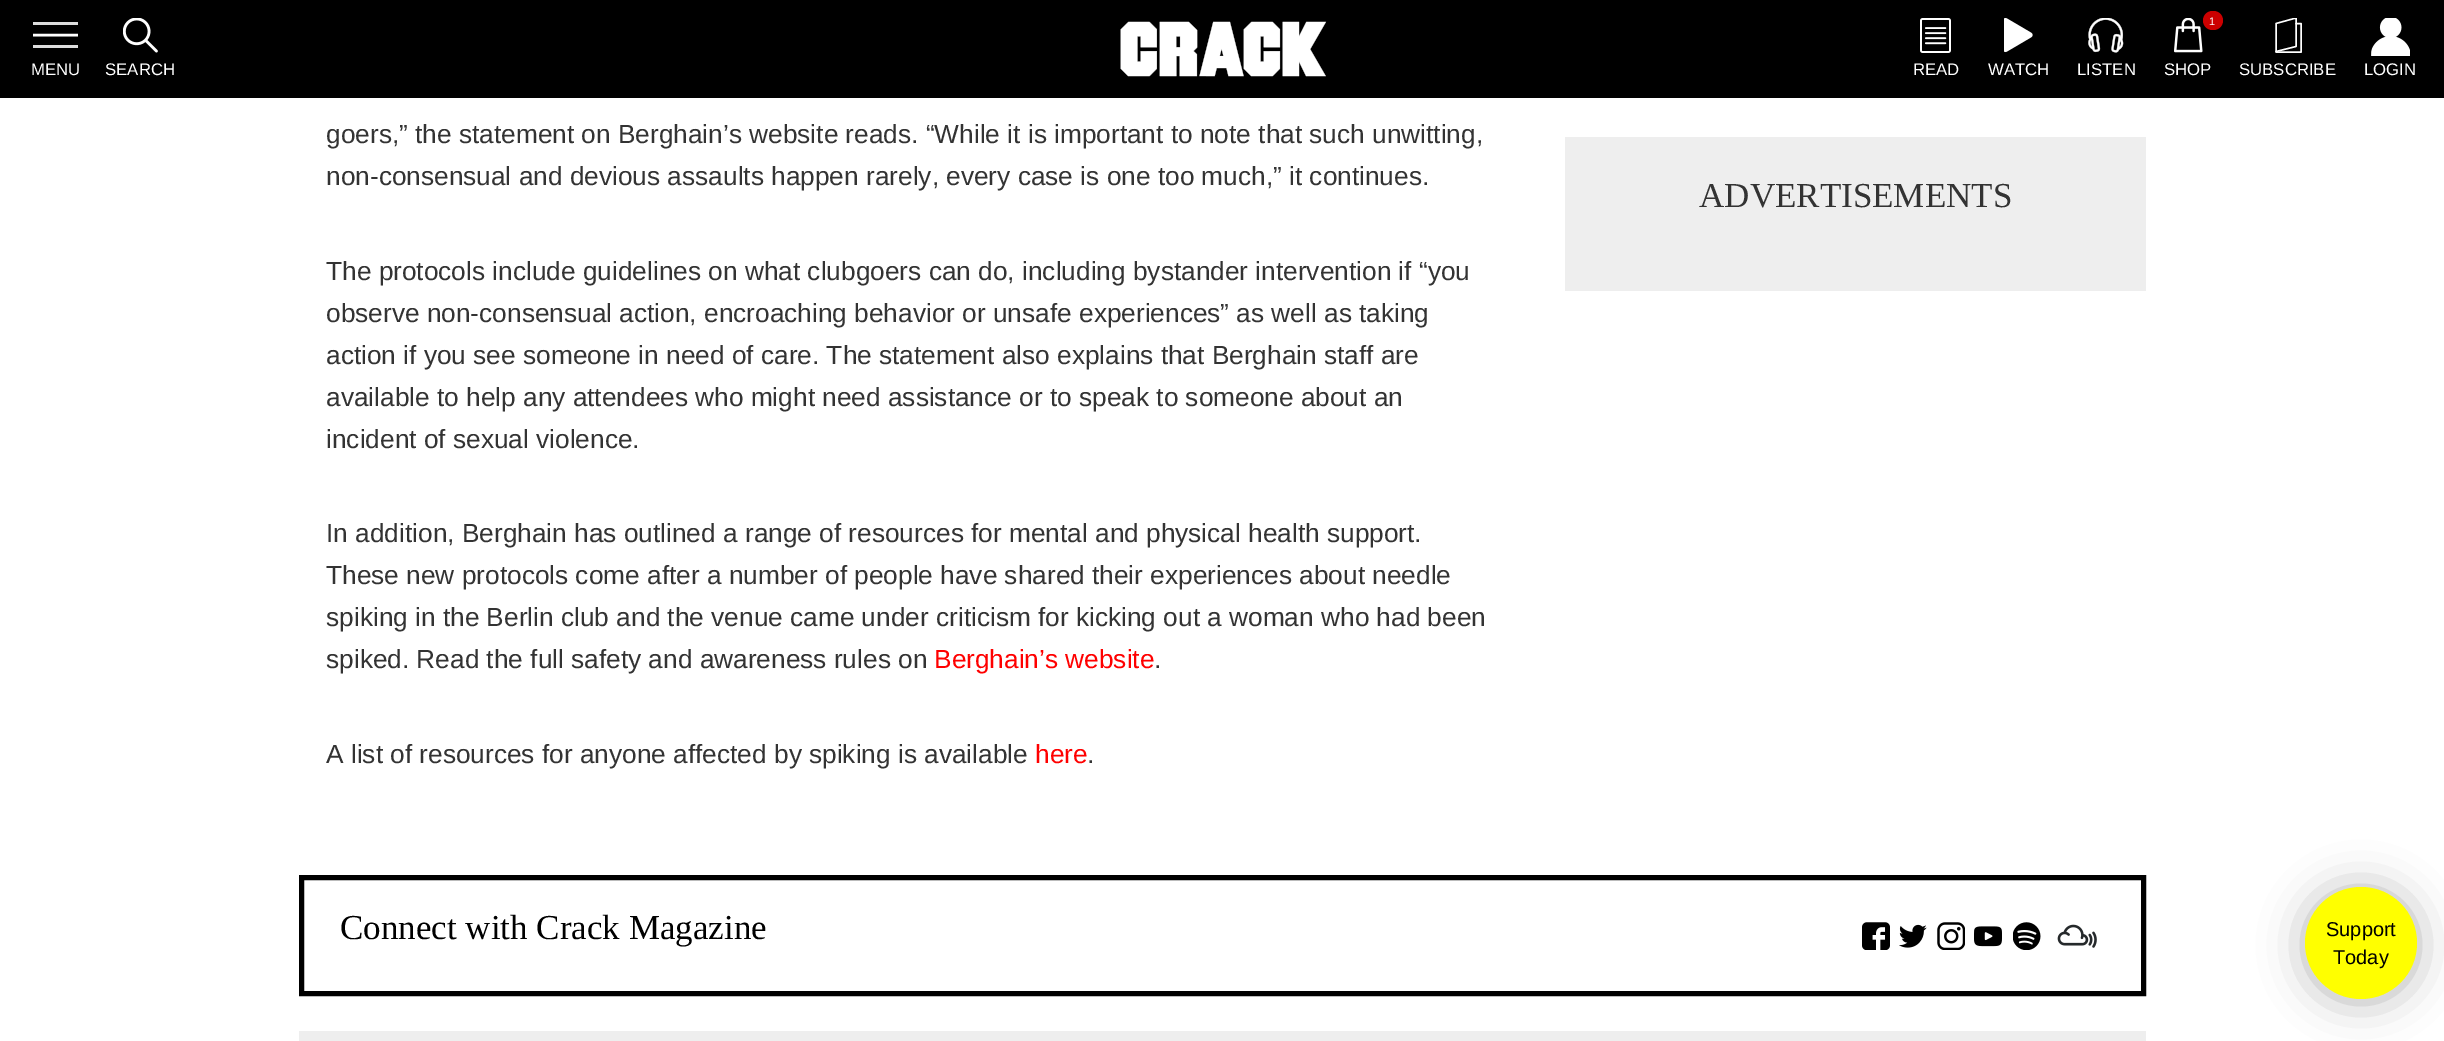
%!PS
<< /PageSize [2444 1041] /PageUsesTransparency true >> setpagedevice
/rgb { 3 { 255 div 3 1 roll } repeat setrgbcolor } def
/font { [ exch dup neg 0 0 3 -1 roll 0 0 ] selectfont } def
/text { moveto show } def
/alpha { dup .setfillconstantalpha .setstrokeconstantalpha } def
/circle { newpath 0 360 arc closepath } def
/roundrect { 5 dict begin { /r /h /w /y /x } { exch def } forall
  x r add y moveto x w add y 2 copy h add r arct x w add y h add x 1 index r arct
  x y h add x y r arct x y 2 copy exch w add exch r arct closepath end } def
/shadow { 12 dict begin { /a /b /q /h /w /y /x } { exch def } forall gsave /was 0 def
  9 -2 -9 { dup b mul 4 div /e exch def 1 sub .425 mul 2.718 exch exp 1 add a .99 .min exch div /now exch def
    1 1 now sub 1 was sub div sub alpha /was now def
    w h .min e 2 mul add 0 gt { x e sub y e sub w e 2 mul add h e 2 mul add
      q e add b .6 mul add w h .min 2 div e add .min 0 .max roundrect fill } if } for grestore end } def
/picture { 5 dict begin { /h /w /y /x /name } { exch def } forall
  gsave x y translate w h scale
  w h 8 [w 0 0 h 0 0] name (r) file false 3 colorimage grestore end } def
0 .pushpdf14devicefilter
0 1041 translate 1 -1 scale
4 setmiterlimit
255 255 255 rgb
0 0 2444 1041 rectfill
0 0 0 rgb
0 0 2444 98 rectfill
221 221 221 rgb
33 22 45 3 rectfill
255 255 255 rgb
2.6 setlinewidth
33 35 moveto 45 0 rlineto stroke
221 221 221 rgb
33 45 45 3 rectfill
(img_01.rgb) 123 18 35 35 picture
(img_02.rgb) 1120 21 207 56 picture
(img_03.rgb) 1920 18 31 35 picture
(img_04.rgb) 2004 18 29 35 picture
(img_05.rgb) 2088 18 36 35 picture
(img_06.rgb) 2174 18 29 35 picture
204 0 0 rgb
2203 11 20 19 9.5 roundrect fill
gsave
2273 18 30 35 rectclip
255 255 255 rgb
1.4 setlinewidth
1 setlinecap
1 setlinejoin
2276 52 moveto 25 0 rlineto 0 -28.5 rlineto -5 0 rlineto 0 -5.5 rlineto -20 5.5 rlineto closepath stroke
grestore
255 255 255 rgb
1.4 setlinewidth
1 setlinecap
1 setlinejoin
2296 23.5 moveto 0 23 rlineto -20 5 rlineto stroke
(img_07.rgb) 2371 18 39 38 picture
238 238 238 rgb
1565 137 581 154 rectfill
0 0 0 rgb
5 setlinewidth
0 setlinecap
0 setlinejoin
301.5 877.5 1842 116 rectstroke
(img_08.rgb) 1862 922 28 28 picture
(img_09.rgb) 1899 924 28 24 picture
(img_10.rgb) 1937 922 28 28 picture
(img_11.rgb) 1974 926 28 21 picture
(img_12.rgb) 2013 922 28 28 picture
(img_13.rgb) 2057 924 40 24 picture
238 238 238 rgb
299 1031 1847 10 rectfill
0 0 0 rgb
2305 889 112 112 56 22 0.3 shadow
255 255 0 rgb
2361 943 56 circle fill
/LiberationSans-Regular 16.75 font
255 255 255 rgb
(MENU) 31 75 text
(SEARCH) 105 75 text
(READ) 1913 75 text
(WATCH) 1988 75 text
(LISTEN) 2077 75 text
/LiberationSans-Regular 11 font
(1) 2209 25 text
/LiberationSans-Regular 16.75 font
(SHOP) 2164 75 text
(SUBSCRIBE) 2239 75 text
(LOGIN) 2364 75 text
/LiberationSans-Regular 26.25 font
51 51 51 rgb
(goers,” the statement on Berghain’s website reads. “While it is important to note that such unwitting,) 326 143 text
(non-consensual and devious assaults happen rarely, every case is one too much,” it continues.) 326 185 text
(The protocols include guidelines on what clubgoers can do, including bystander intervention if “you) 326 280 text
(observe non-consensual action, encroaching behavior or unsafe experiences” as well as taking) 326 322 text
(action if you see someone in need of care. The statement also explains that Berghain staff are) 326 364 text
(available to help any attendees who might need assistance or to speak to someone about an) 326 406 text
(incident of sexual violence.) 326 448 text
(In addition, Berghain has outlined a range of resources for mental and physical health support.) 326 542 text
(These new protocols come after a number of people have shared their experiences about needle) 326 584 text
(spiking in the Berlin club and the venue came under criticism for kicking out a woman who had been) 326 626 text
(spiked. Read the full safety and awareness rules on) 326 668 text
255 0 0 rgb
(Berghain’s website) 934 668 text
51 51 51 rgb
(.) 1154 668 text
(A list of resources for anyone affected by spiking is available) 326 763 text
255 0 0 rgb
(here) 1035 763 text
51 51 51 rgb
(.) 1087 763 text
/LiberationSerif-Regular 35 font
(ADVERTISEMENTS) 1699 207 text
0 0 0 rgb
(Connect with Crack Magazine) 340 939 text
/LiberationSans-Regular 20 font
(Support) 2326 936 text
(Today) 2333 964 text
.poppdf14devicefilter showpage
